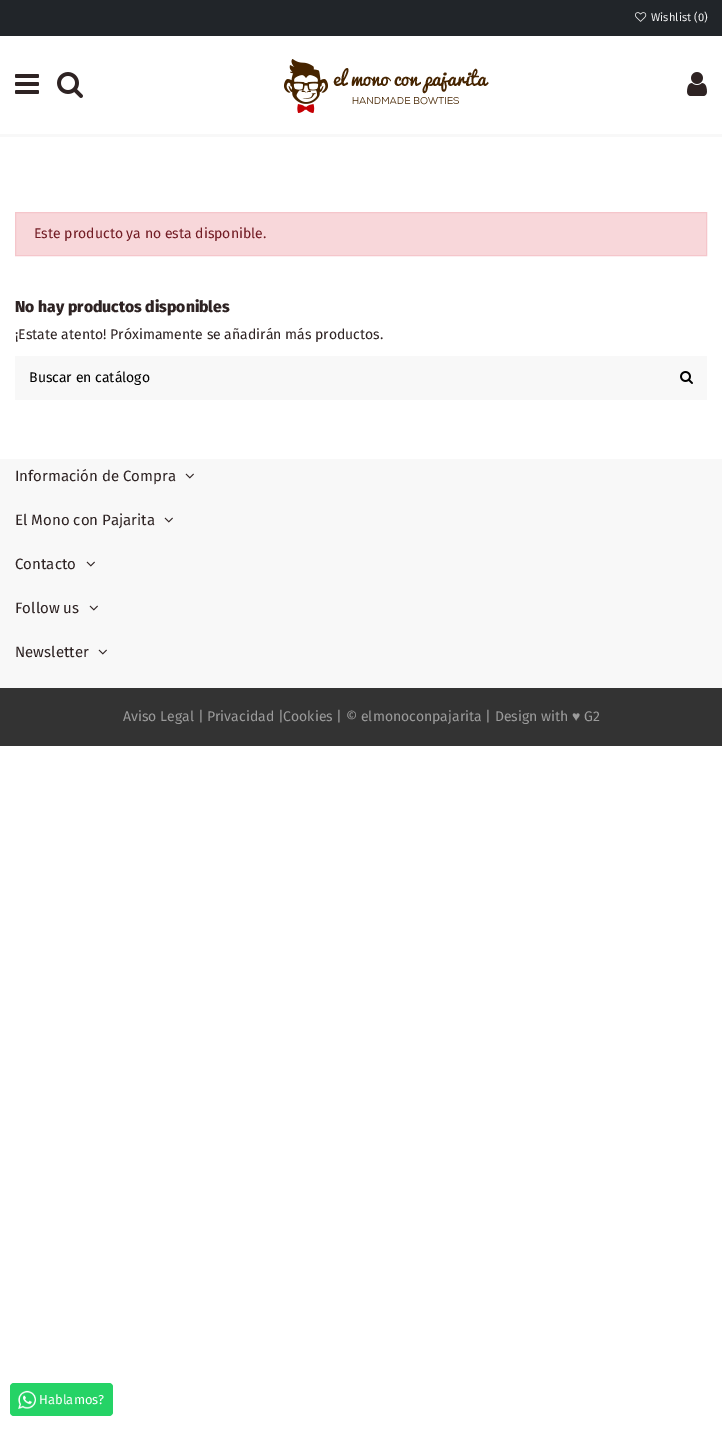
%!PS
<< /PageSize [722 1436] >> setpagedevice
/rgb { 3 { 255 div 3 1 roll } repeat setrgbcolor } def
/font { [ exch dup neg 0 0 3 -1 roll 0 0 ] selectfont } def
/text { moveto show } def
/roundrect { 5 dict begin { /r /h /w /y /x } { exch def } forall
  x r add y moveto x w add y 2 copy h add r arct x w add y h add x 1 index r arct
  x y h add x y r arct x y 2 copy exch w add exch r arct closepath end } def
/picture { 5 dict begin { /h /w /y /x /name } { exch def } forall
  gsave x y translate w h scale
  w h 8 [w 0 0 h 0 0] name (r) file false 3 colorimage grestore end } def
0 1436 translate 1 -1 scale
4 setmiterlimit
255 255 255 rgb
0 0 722 1436 rectfill
248 248 248 rgb
0 134 722 3 rectfill
33 37 41 rgb
0 0 722 36 rectfill
(img_01.rgb) 635 12 12 10 picture
(img_02.rgb) 15 74 24 20 picture
(img_03.rgb) 57 72 26 26 picture
(img_04.rgb) 284 59 205 54 picture
(img_05.rgb) 687 72 20 24 picture
248 215 218 rgb
15.5 212.5 moveto 691 0 rlineto 0 43 rlineto -691 0 rlineto closepath gsave fill grestore
245 198 203 rgb
stroke
248 248 248 rgb
15 356 692 44 rectfill
(img_06.rgb) 680 371 13 13 picture
0 459 722 229 rectfill
(img_07.rgb) 185 473 9 6 picture
(img_07.rgb) 164 517 9 6 picture
(img_07.rgb) 86 561 9 6 picture
(img_07.rgb) 89 605 9 6 picture
(img_07.rgb) 98 649 9 6 picture
51 51 51 rgb
0 688 722 58 rectfill
37 211 102 rgb
10 1383 103 33 4 roundrect fill
(img_08.rgb) 18 1390 18 19 picture
/FiraSans-Regular 11.25 font
241 241 241 rgb
(Wishlist \(0\)) 651 21 text
/FiraSans-Regular 14 font
114 28 36 rgb
(Este producto ya no esta disponible.) 34 238 text
/FiraSans-ExtraBold 15.75 font
46 35 35 rgb
(No hay productos disponibles) 15 312 text
/FiraSans-Regular 14 font
(¡Estate atento! Próximamente se añadirán más productos.) 15 339 text
0 0 0 rgb
(Buscar en catálogo) 29 382 text
/FiraSans-Regular 15 font
46 35 35 rgb
(Información de Compra) 15 481 text
(El Mono con Pajarita) 15 525 text
(Contacto) 15 569 text
(Follow us) 15 613 text
(Newsletter) 15 657 text
/FiraSans-Regular 14 font
155 155 155 rgb
(Aviso Legal | Privacidad |Cookies | © elmonoconpajarita | Design with) 123 721 text
/LiberationSans-Regular 14 font
(♥) 572 721 text
/FiraSans-Regular 14 font
(G2) 584 721 text
/FiraSans-Regular 13 font
255 255 255 rgb
(Hablamos?) 39 1404 text
showpage
